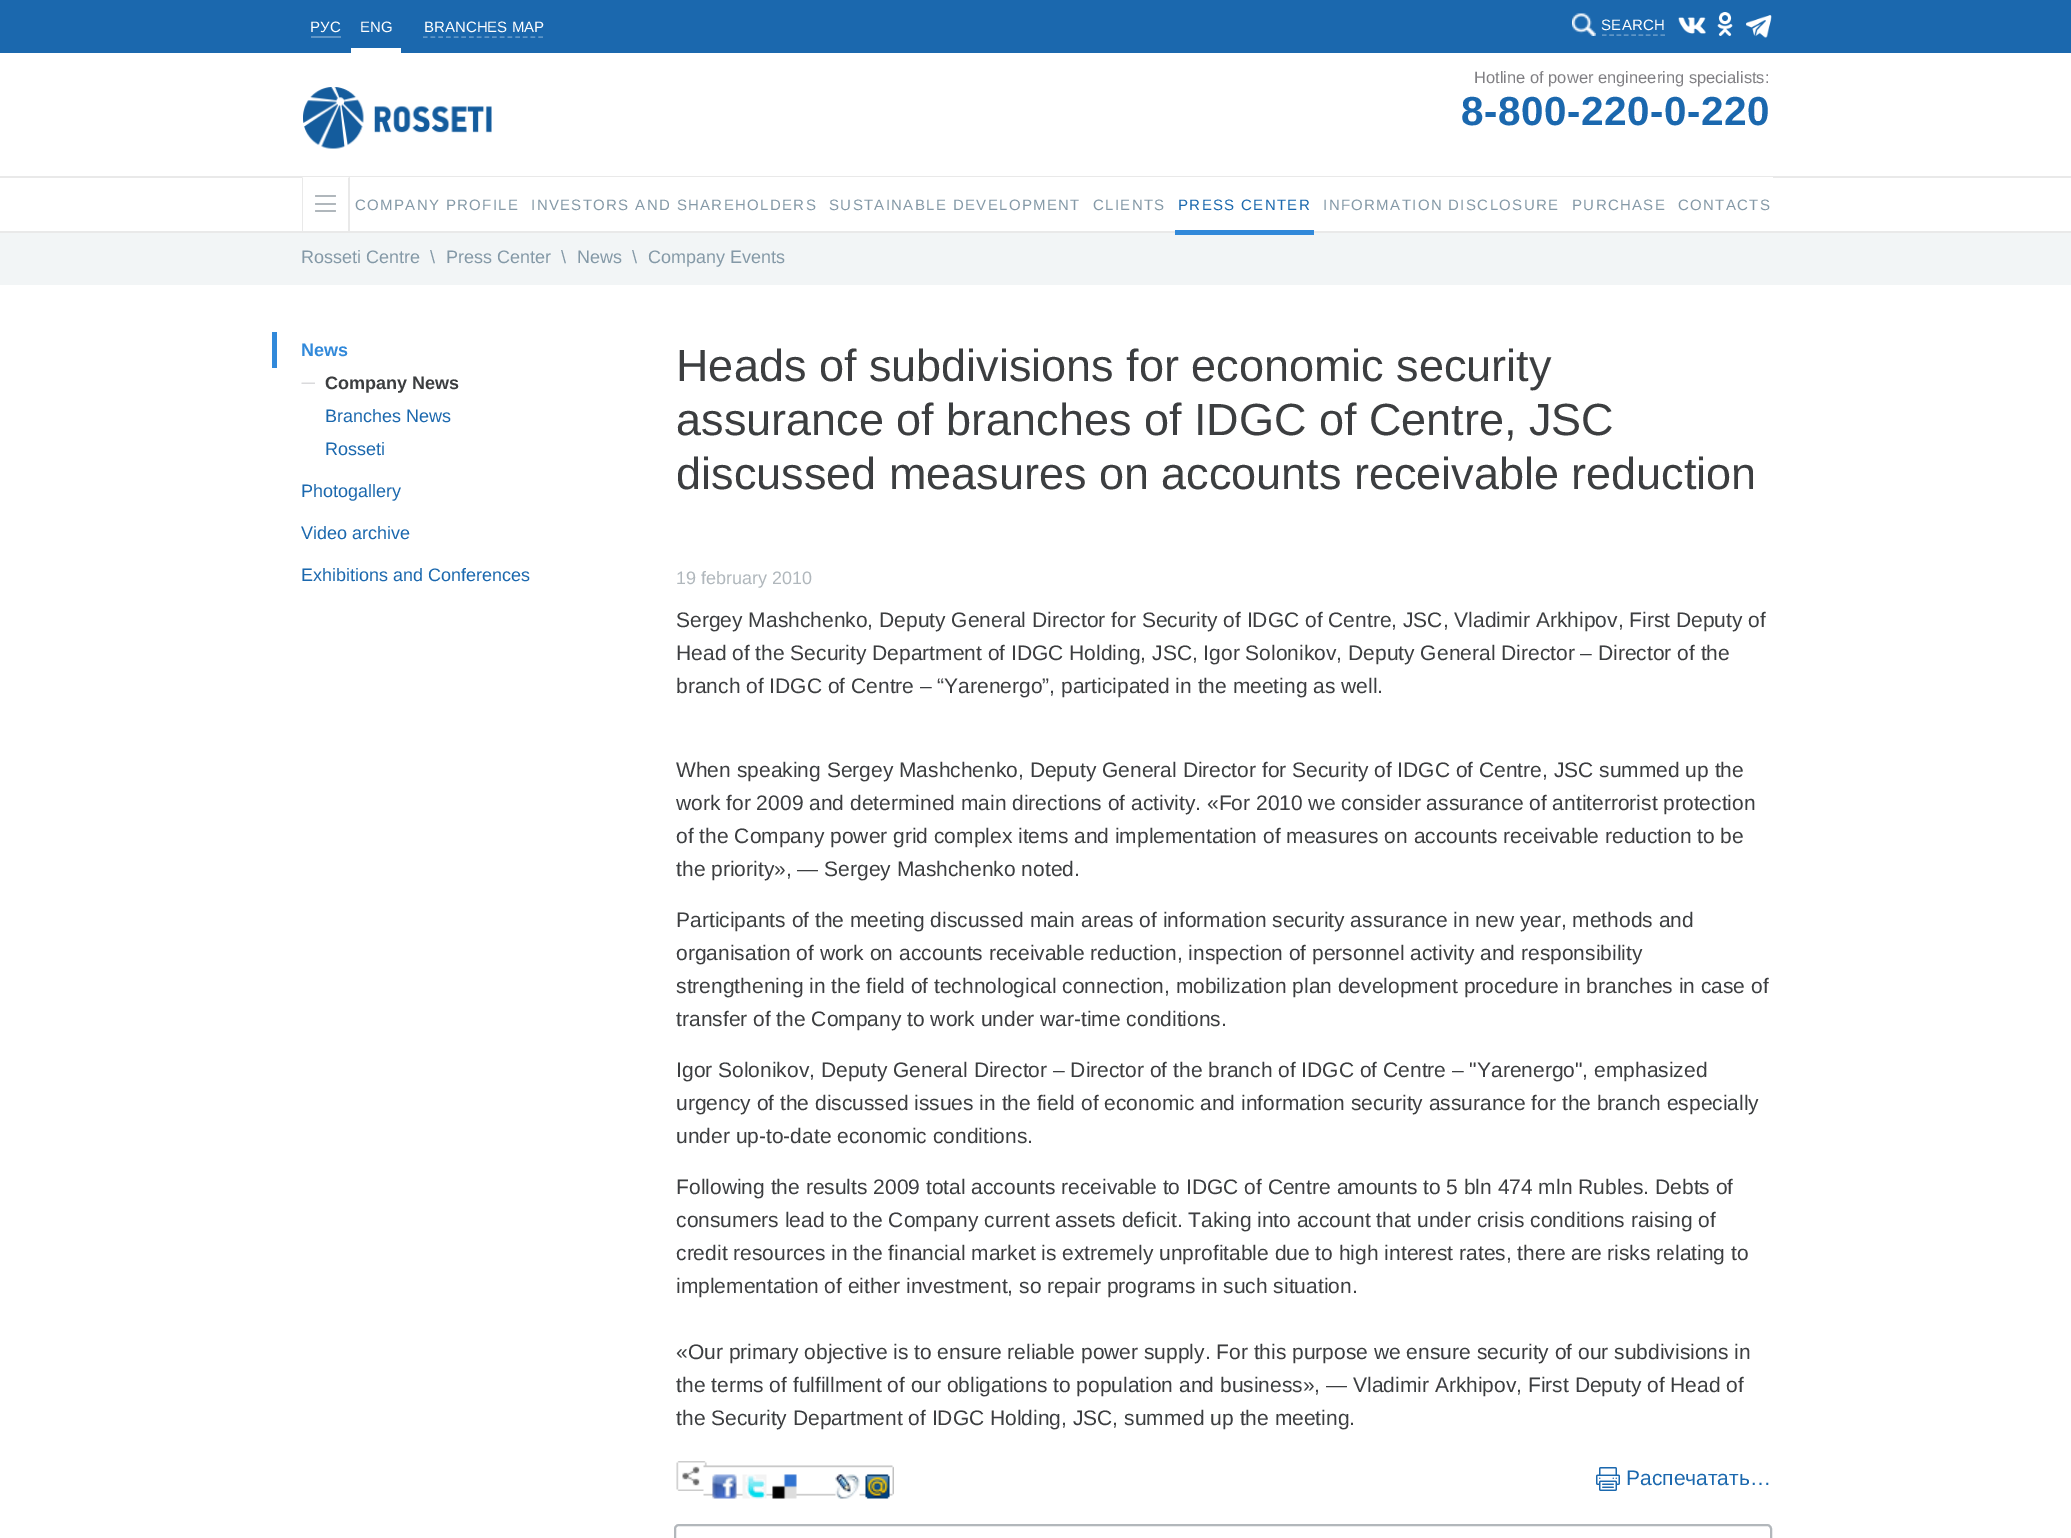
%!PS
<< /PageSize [2071 1538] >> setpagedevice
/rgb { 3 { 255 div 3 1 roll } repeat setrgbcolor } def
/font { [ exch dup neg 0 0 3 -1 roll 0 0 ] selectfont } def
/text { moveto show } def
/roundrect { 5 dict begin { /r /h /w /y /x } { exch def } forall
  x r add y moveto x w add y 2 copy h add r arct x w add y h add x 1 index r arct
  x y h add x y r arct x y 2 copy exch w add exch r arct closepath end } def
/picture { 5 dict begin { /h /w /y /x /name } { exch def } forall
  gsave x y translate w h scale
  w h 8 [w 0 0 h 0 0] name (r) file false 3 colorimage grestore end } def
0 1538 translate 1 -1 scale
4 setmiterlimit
255 255 255 rgb
0 0 2071 1538 rectfill
27 104 174 rgb
0 0 2071 53 rectfill
95 149 198 rgb
311 36 30 2 rectfill
255 255 255 rgb
351 48 50 5 rectfill
95 149 198 rgb
1.5 setlinewidth
[4.5 3.19] 0 setdash
423 37 moveto 120 0 rlineto stroke
(img_01.rgb) 1572 13 24 23 picture
[4.5 2.82] 0 setdash
1602 35 moveto 63 0 rlineto stroke
(img_02.rgb) 1678 17 28 17 picture
(img_03.rgb) 1717 12 16 24 picture
(img_04.rgb) 1746 15 26 23 picture
233 233 233 rgb
0 176 2071 2 rectfill
(img_05.rgb) 303 87 189 62 picture
0 231 2071 2 rectfill
255 255 255 rgb
302 177 1471 1 rectfill
233 233 233 rgb
350 177 moveto 0 54 rlineto -2 0 rlineto 0 -53 rlineto closepath 302 231 moveto 0 -54 rlineto 1 1 rlineto 0 53 rlineto closepath fill
176 183 188 rgb
315 203 21 2 1 roundrect fill
315 195 21 2 1 roundrect fill
315 210 21 2 1 roundrect fill
242 245 246 rgb
0 233 2071 52 rectfill
49 137 218 rgb
1175 230 139 5 rectfill
272 332 5 36 rectfill
(img_06.rgb) 301 382 14 2 picture
(img_07.rgb) 676 1461 31 30 picture
(img_08.rgb) 703 1465 191 31 picture
(img_09.rgb) 712 1474 25 25 picture
(img_10.rgb) 742 1474 25 25 picture
(img_11.rgb) 772 1474 25 25 picture
(img_12.rgb) 835 1474 25 25 picture
(img_13.rgb) 865 1474 25 25 picture
(img_14.rgb) 1596 1467 24 24 picture
178 183 187 rgb
2 setlinewidth
[] 0 setdash
675 1525 1096 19 4 roundrect stroke
/LiberationSans-Regular 15 font
255 255 255 rgb
(РУС) 310 32 text
(ENG) 360 32 text
(BRANCHES MAP) 424 32 text
1601 30 moveto 0.25 0 (SEARCH) ashow
/LiberationSans-Regular 16.5 font
128 127 131 rgb
(Hotline of power engineering specialists:) 1474 83 text
/LiberationSans-Bold 40.5 font
27 104 174 rgb
1461 125 moveto 0.5 0 (8-800-220-0-220) ashow
/LiberationSans-Regular 15 font
132 153 167 rgb
355 210 moveto 1.35 0 (COMPANY PROFILE) ashow
531 210 moveto 1.35 0 (INVESTORS AND SHAREHOLDERS) ashow
829 210 moveto 1.35 0 (SUSTAINABLE DEVELOPMENT) ashow
1093 210 moveto 1.35 0 (CLIENTS) ashow
27 104 174 rgb
1178 210 moveto 1.35 0 (PRESS CENTER) ashow
132 153 167 rgb
1323 210 moveto 1.35 0 (INFORMATION DISCLOSURE) ashow
1572 210 moveto 1.35 0 (PURCHASE) ashow
1678 210 moveto 1.35 0 (CONTACTS) ashow
/LiberationSans-Regular 18 font
(Rosseti Centre) 301 263 text
(\\) 430 263 text
(Press Center) 446 263 text
(\\) 561 263 text
(News) 577 263 text
(\\) 632 263 text
(Company Events) 648 263 text
/LiberationSans-Bold 18 font
49 137 218 rgb
(News) 301 356 text
60 62 64 rgb
(Company News) 325 389 text
/LiberationSans-Regular 18 font
27 104 174 rgb
(Branches News) 325 422 text
(Rosseti) 325 455 text
(Photogallery) 301 497 text
(Video archive) 301 539 text
(Exhibitions and Conferences) 301 581 text
/LiberationSans-Regular 45 font
60 62 64 rgb
(Heads of subdivisions for economic security) 676 381 text
(assurance of branches of IDGC of Centre, JSC) 676 435 text
(discussed measures on accounts receivable reduction) 676 489 text
/LiberationSans-Regular 18 font
176 183 188 rgb
(19 february 2010) 676 584 text
/LiberationSans-Regular 21 font
60 62 64 rgb
(Sergey Mashchenko, Deputy General Director for Security of IDGC of Centre, JSC, Vladimir Arkhipov, First Deputy of) 676 627 text
(Head of the Security Department of IDGC Holding, JSC, Igor Solonikov, Deputy General Director – Director of the) 676 660 text
(branch of IDGC of Centre – “Yarenergo”, participated in the meeting as well.) 676 693 text
(When speaking Sergey Mashchenko, Deputy General Director for Security of IDGC of Centre, JSC summed up the) 676 777 text
(work for 2009 and determined main directions of activity. «For 2010 we consider assurance of antiterrorist protection) 676 810 text
(of the Company power grid complex items and implementation of measures on accounts receivable reduction to be) 676 843 text
(the priority», ― Sergey Mashchenko noted.) 676 876 text
(Participants of the meeting discussed main areas of information security assurance in new year, methods and) 676 927 text
(organisation of work on accounts receivable reduction, inspection of personnel activity and responsibility) 676 960 text
(strengthening in the field of technological connection, mobilization plan development procedure in branches in case of) 676 993 text
(transfer of the Company to work under war-time conditions.) 676 1026 text
(Igor Solonikov, Deputy General Director – Director of the branch of IDGC of Centre – "Yarenergo", emphasized) 676 1077 text
(urgency of the discussed issues in the field of economic and information security assurance for the branch especially) 676 1110 text
(under up-to-date economic conditions.) 676 1143 text
(Following the results 2009 total accounts receivable to IDGC of Centre amounts to 5 bln 474 mln Rubles. Debts of) 676 1194 text
(consumers lead to the Company current assets deficit. Taking into account that under crisis conditions raising of) 676 1227 text
(credit resources in the financial market is extremely unprofitable due to high interest rates, there are risks relating to) 676 1260 text
(implementation of either investment, so repair programs in such situation.) 676 1293 text
(«Our primary objective is to ensure reliable power supply. For this purpose we ensure security of our subdivisions in) 676 1359 text
(the terms of fulfillment of our obligations to population and business», ― Vladimir Arkhipov, First Deputy of Head of) 676 1392 text
(the Security Department of IDGC Holding, JSC, summed up the meeting.) 676 1425 text
27 104 174 rgb
(Распечатать…) 1626 1485 text
showpage
